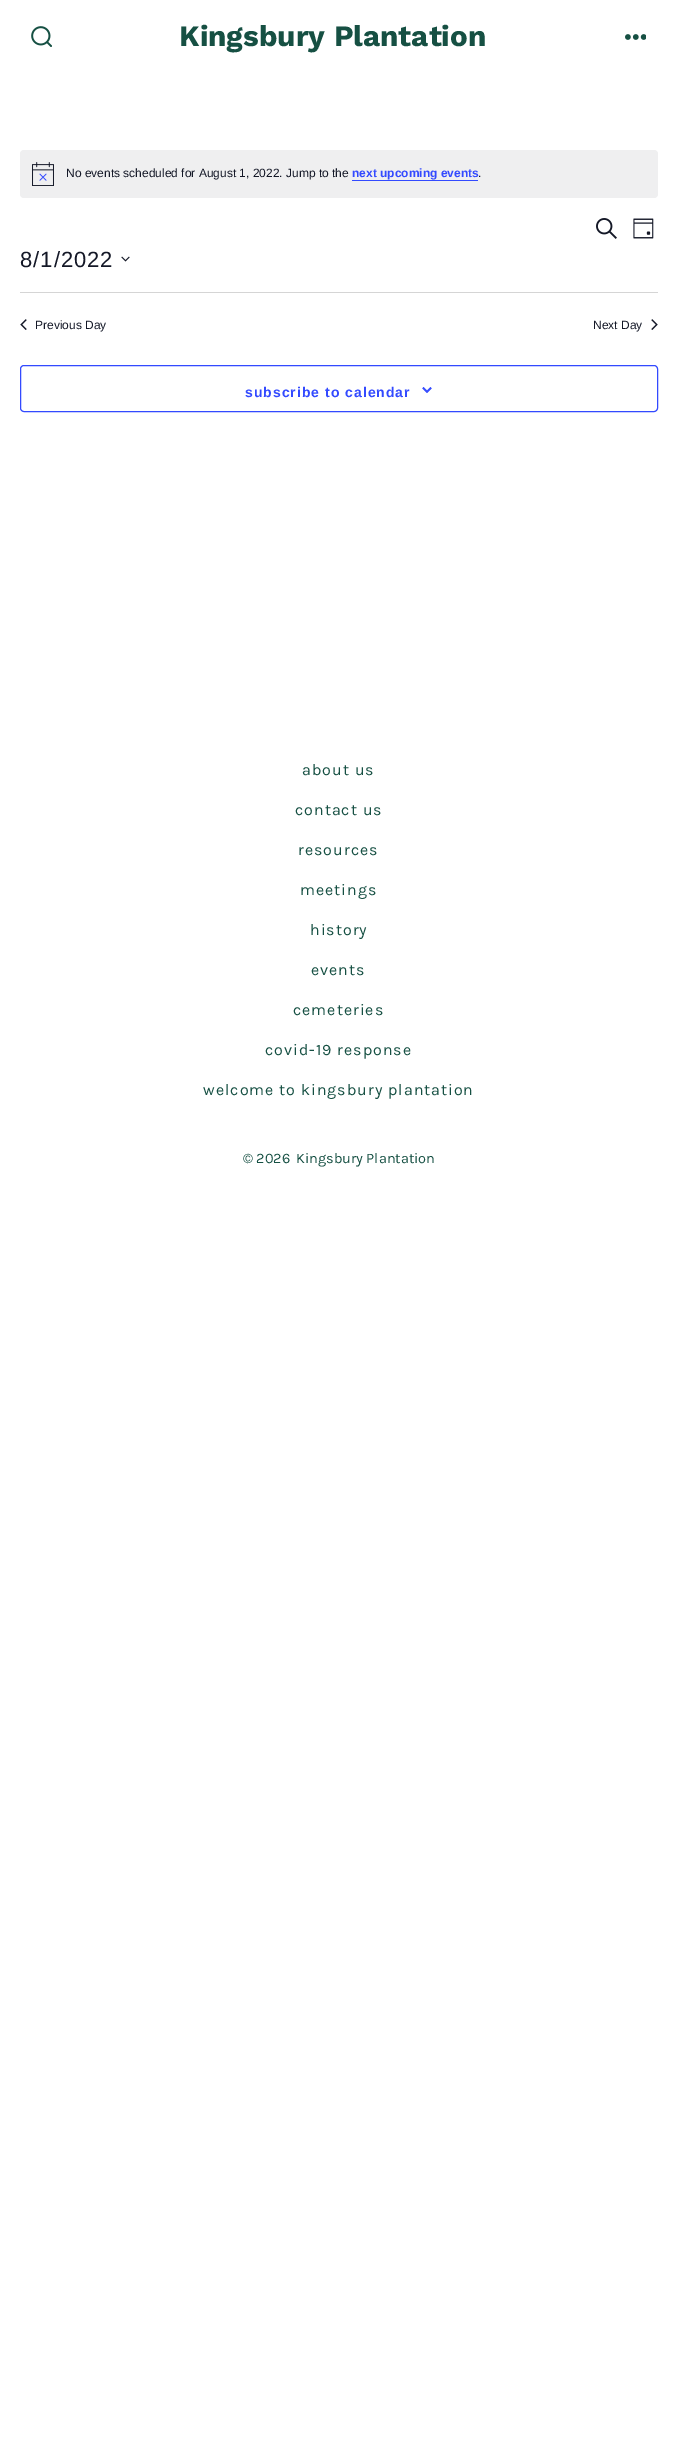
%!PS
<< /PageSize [677 2455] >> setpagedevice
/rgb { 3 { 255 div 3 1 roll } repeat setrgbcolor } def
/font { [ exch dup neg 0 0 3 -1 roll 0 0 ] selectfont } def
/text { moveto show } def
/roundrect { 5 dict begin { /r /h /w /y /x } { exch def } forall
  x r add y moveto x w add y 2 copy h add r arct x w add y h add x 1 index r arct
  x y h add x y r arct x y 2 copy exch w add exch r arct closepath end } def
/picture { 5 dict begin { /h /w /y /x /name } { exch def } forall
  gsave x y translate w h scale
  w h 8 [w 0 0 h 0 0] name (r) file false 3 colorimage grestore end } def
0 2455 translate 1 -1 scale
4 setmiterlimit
255 255 255 rgb
0 0 677 2455 rectfill
(img_01.rgb) 31 26 21 21 picture
(img_02.rgb) 625 34 21 6 picture
239 239 240 rgb
20 150 638 48 4 roundrect fill
(img_03.rgb) 32 162 22 24 picture
51 74 255 rgb
352 180 126 1 rectfill
(img_04.rgb) 596 218 21 21 picture
(img_05.rgb) 633 218 21 21 picture
(img_06.rgb) 121 256 9 6 picture
213 213 213 rgb
20 292 638 1 rectfill
(img_07.rgb) 20 319 7 11 picture
(img_08.rgb) 651 319 7 11 picture
51 74 255 rgb
20.5 365.5 637 46 3.5 roundrect stroke
(img_09.rgb) 422 387 10 6 picture
/WorkSans-Bold 29.6 font
22 80 67 rgb
(Kingsbury Plantation) 179 46 text
/LiberationSans-Regular 12 font
20 24 39 rgb
(No events scheduled for August 1, 2022. Jump to the) 66 177 text
/LiberationSans-Bold 12 font
51 74 255 rgb
(next upcoming events) 352 177 text
/LiberationSans-Regular 12 font
20 24 39 rgb
(.) 478 177 text
/LiberationSans-Regular 22 font
20 267 moveto 1 0 (8/1/2022) ashow
/LiberationSans-Regular 12 font
(Previous Day) 35 329 text
(Next Day) 593 329 text
/LiberationSans-Bold 14 font
51 74 255 rgb
245 397 moveto 1 0 (subscribe to calendar) ashow
/Karla-Regular 16 font
22 80 67 rgb
302 775 moveto 1 0 (about us) ashow
295 815 moveto 1 0 (contact us) ashow
298 855 moveto 1 0 (resources) ashow
300 895 moveto 1 0 (meetings) ashow
310 935 moveto 1 0 (history) ashow
311 975 moveto 1 0 (events) ashow
293 1015 moveto 1 0 (cemeteries) ashow
265 1055 moveto 1 0 (covid-19 response) ashow
203 1095 moveto 1 0 (welcome to kingsbury plantation) ashow
/Karla-Regular 14.5 font
(© 2026) 243 1163 text
(Kingsbury Plantation) 296 1163 text
showpage
